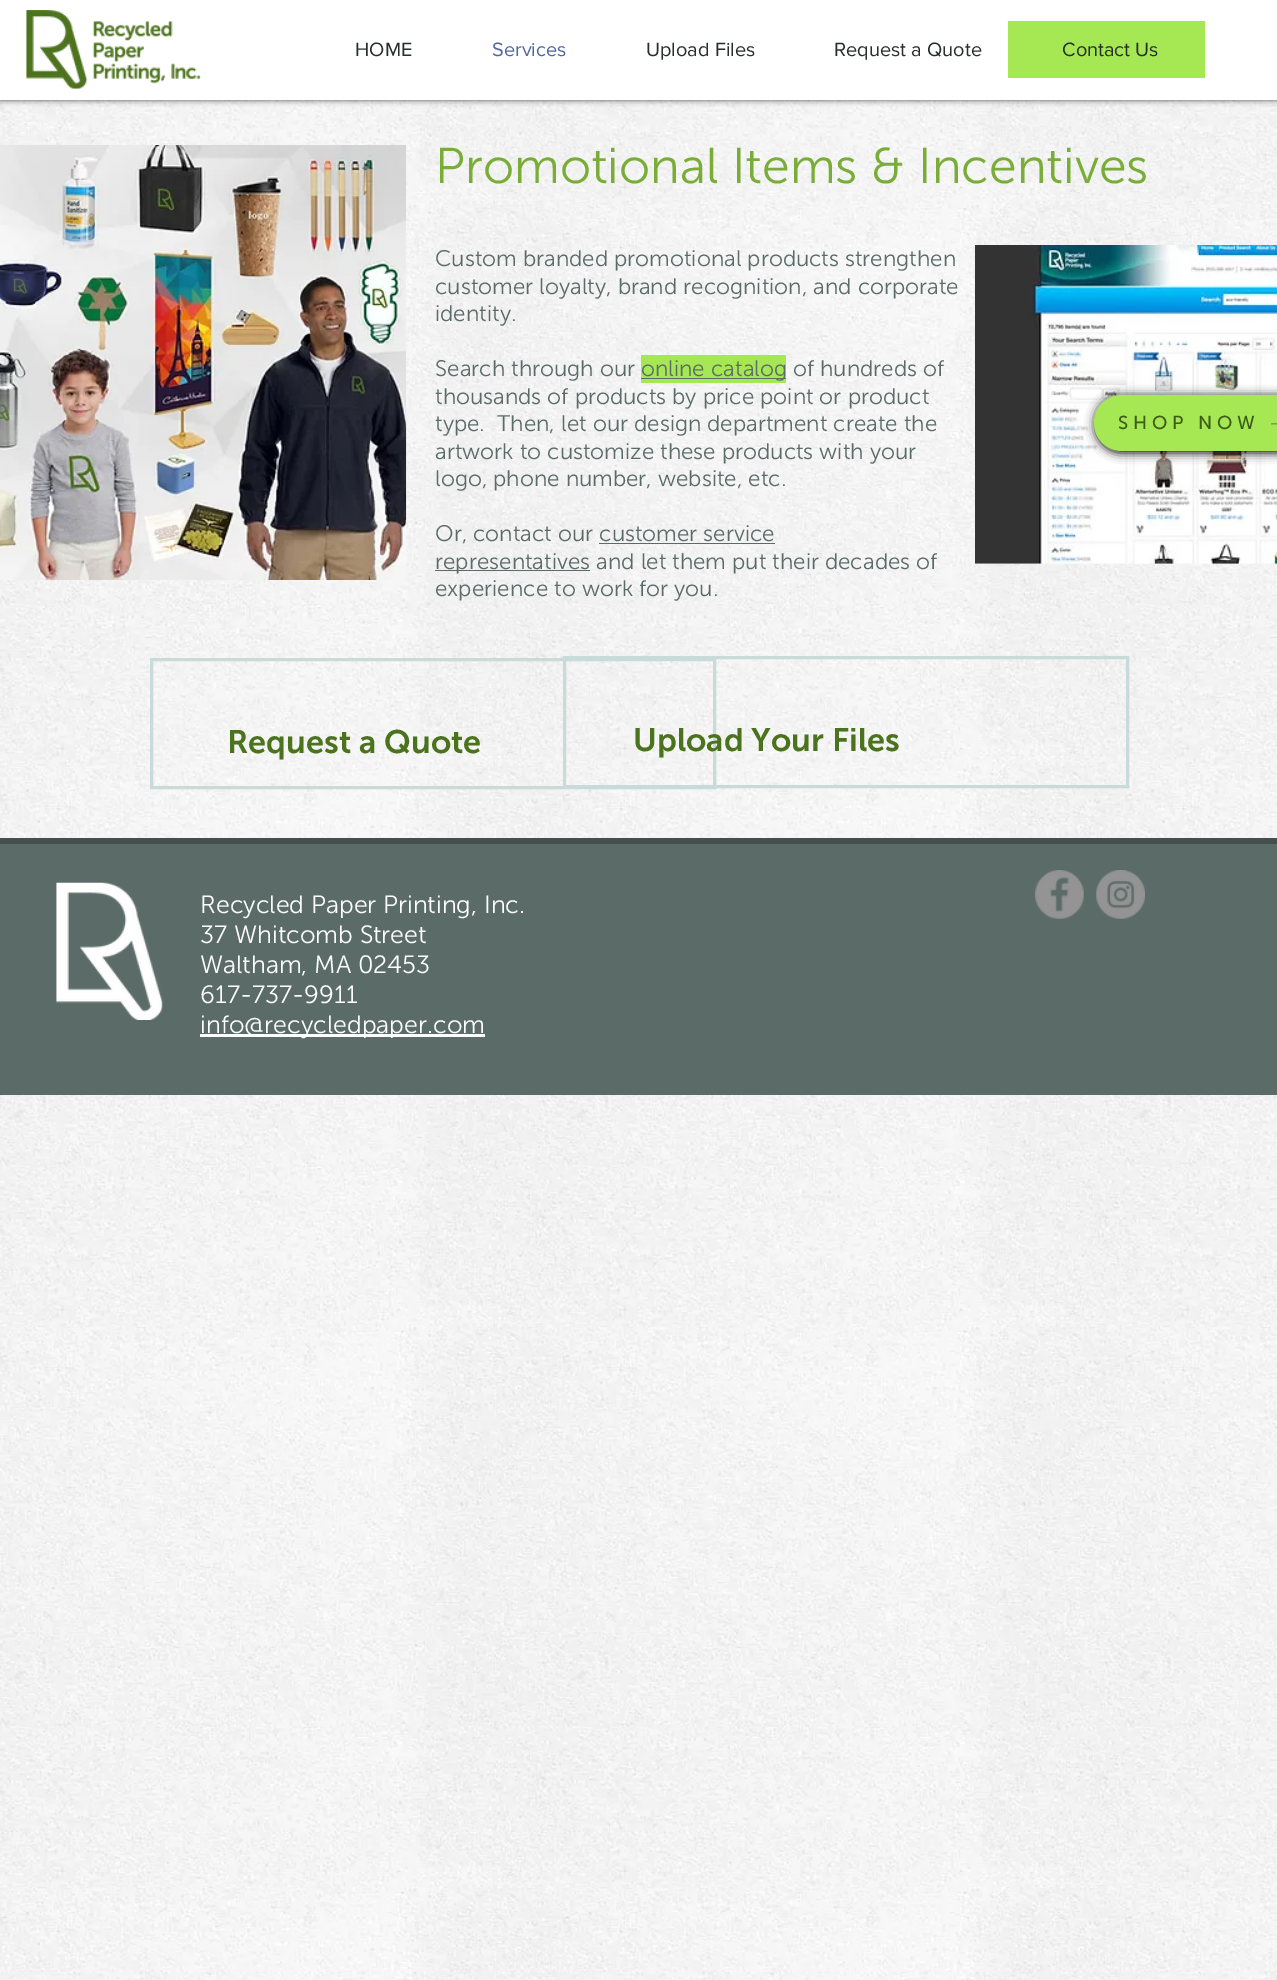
%!PS
<< /PageSize [1277 1980] /PageUsesTransparency true >> setpagedevice
/rgb { 3 { 255 div 3 1 roll } repeat setrgbcolor } def
/font { [ exch dup neg 0 0 3 -1 roll 0 0 ] selectfont } def
/text { moveto show } def
/alpha { dup .setfillconstantalpha .setstrokeconstantalpha } def
/roundrect { 5 dict begin { /r /h /w /y /x } { exch def } forall
  x r add y moveto x w add y 2 copy h add r arct x w add y h add x 1 index r arct
  x y h add x y r arct x y 2 copy exch w add exch r arct closepath end } def
/shadow { 12 dict begin { /a /b /q /h /w /y /x } { exch def } forall gsave /was 0 def
  9 -2 -9 { dup b mul 4 div /e exch def 1 sub .425 mul 2.718 exch exp 1 add a .99 .min exch div /now exch def
    1 1 now sub 1 was sub div sub alpha /was now def
    w h .min e 2 mul add 0 gt { x e sub y e sub w e 2 mul add h e 2 mul add
      q e add b .6 mul add w h .min 2 div e add .min 0 .max roundrect fill } if } for grestore end } def
/picture { 5 dict begin { /h /w /y /x /name } { exch def } forall
  gsave x y translate w h scale
  w h 8 [w 0 0 h 0 0] name (r) file false 3 colorimage grestore end } def
0 .pushpdf14devicefilter
0 1980 translate 1 -1 scale
4 setmiterlimit
255 255 255 rgb
0 0 1277 1980 rectfill
(img_08.rgb) 0 100 1277 1880 picture
0 0 0 rgb
0 0 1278 100 0 3 0.7 shadow
255 255 255 rgb
0 0 1277 100 rectfill
(img_01.rgb) 26 10 175 79 picture
166 232 83 rgb
1008 21 197 57 rectfill
(img_02.rgb) 0 145 407 435 picture
641 355 145 28 rectfill
91 108 104 rgb
641 378 145 1 rectfill
599 543 176 1 rectfill
435 570 155 1 rectfill
(img_03.rgb) 975 245 302 319 picture
0 0 0 rgb
1095 396 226 57 28.5 5 1 shadow
166 232 83 rgb
1122 395 moveto 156 0 rlineto 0 56 rlineto -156 0 rlineto -15.5 0 -28 -12.5 -28 -28 rcurveto 0 -15.5 12.5 -28 28 -28 rcurveto closepath fill
(img_04.rgb) 1271 423 6 2 picture
200 219 216 rgb
3 setlinewidth
151.5 659.5 563 128 rectstroke
564.5 657.5 563 129 rectstroke
91 108 104 rgb
0 844 1277 251 rectfill
67 79 76 rgb
0 838 1277 6 rectfill
(img_05.rgb) 56 882 107 138 picture
255 255 255 rgb
200 1034 285 3 rectfill
(img_06.rgb) 1035 870 49 49 picture
(img_07.rgb) 1096 870 49 49 picture
/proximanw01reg-Regular 20 font
39 46 44 rgb
(HOME) 355 56 text
78 104 159 rgb
(Services) 492 56 text
39 46 44 rgb
(Upload Files) 646 56 text
(Request a Quote) 834 56 text
(Contact Us) 1062 56 text
/MuseoSans-Light 50 font
121 173 56 rgb
(Promotional Items & Incentives) 435 183 text
/MuseoSans-Light 22.5 font
91 108 104 rgb
(Custom branded promotional products strengthen) 435 266 text
(customer loyalty, brand recognition, and corporate) 435 294 text
(identity.) 435 321 text
(Search through our) 435 376 text
(online catalog of hundreds of) 641 376 text
(thousands of products by price point or product) 435 404 text
(type.  Then, let our design department create the) 435 431 text
(artwork to customize these products with your) 435 459 text
(logo, phone number, website, etc.) 435 486 text
(Or, contact our customer service) 435 541 text
(representatives and let them put their decades of) 435 569 text
(experience to work for you.) 435 596 text
/MuseoSans-Regular 18.75 font
60 92 23 rgb
1118 429 moveto 4.75 0 (SHOP NOW) ashow
/MuseoSans-SemiBold 32.5 font
75 114 29 rgb
(Request a Quote) 227 753 text
(Upload Your Files) 633 751 text
/MuseoSans-Light 25 font
255 255 255 rgb
(Recycled Paper Printing, Inc.) 200 913 text
(37 Whitcomb Street) 200 943 text
(Waltham, MA 02453) 200 973 text
(617-737-9911) 200 1003 text
(info@recycledpaper.com) 200 1033 text
.poppdf14devicefilter showpage
